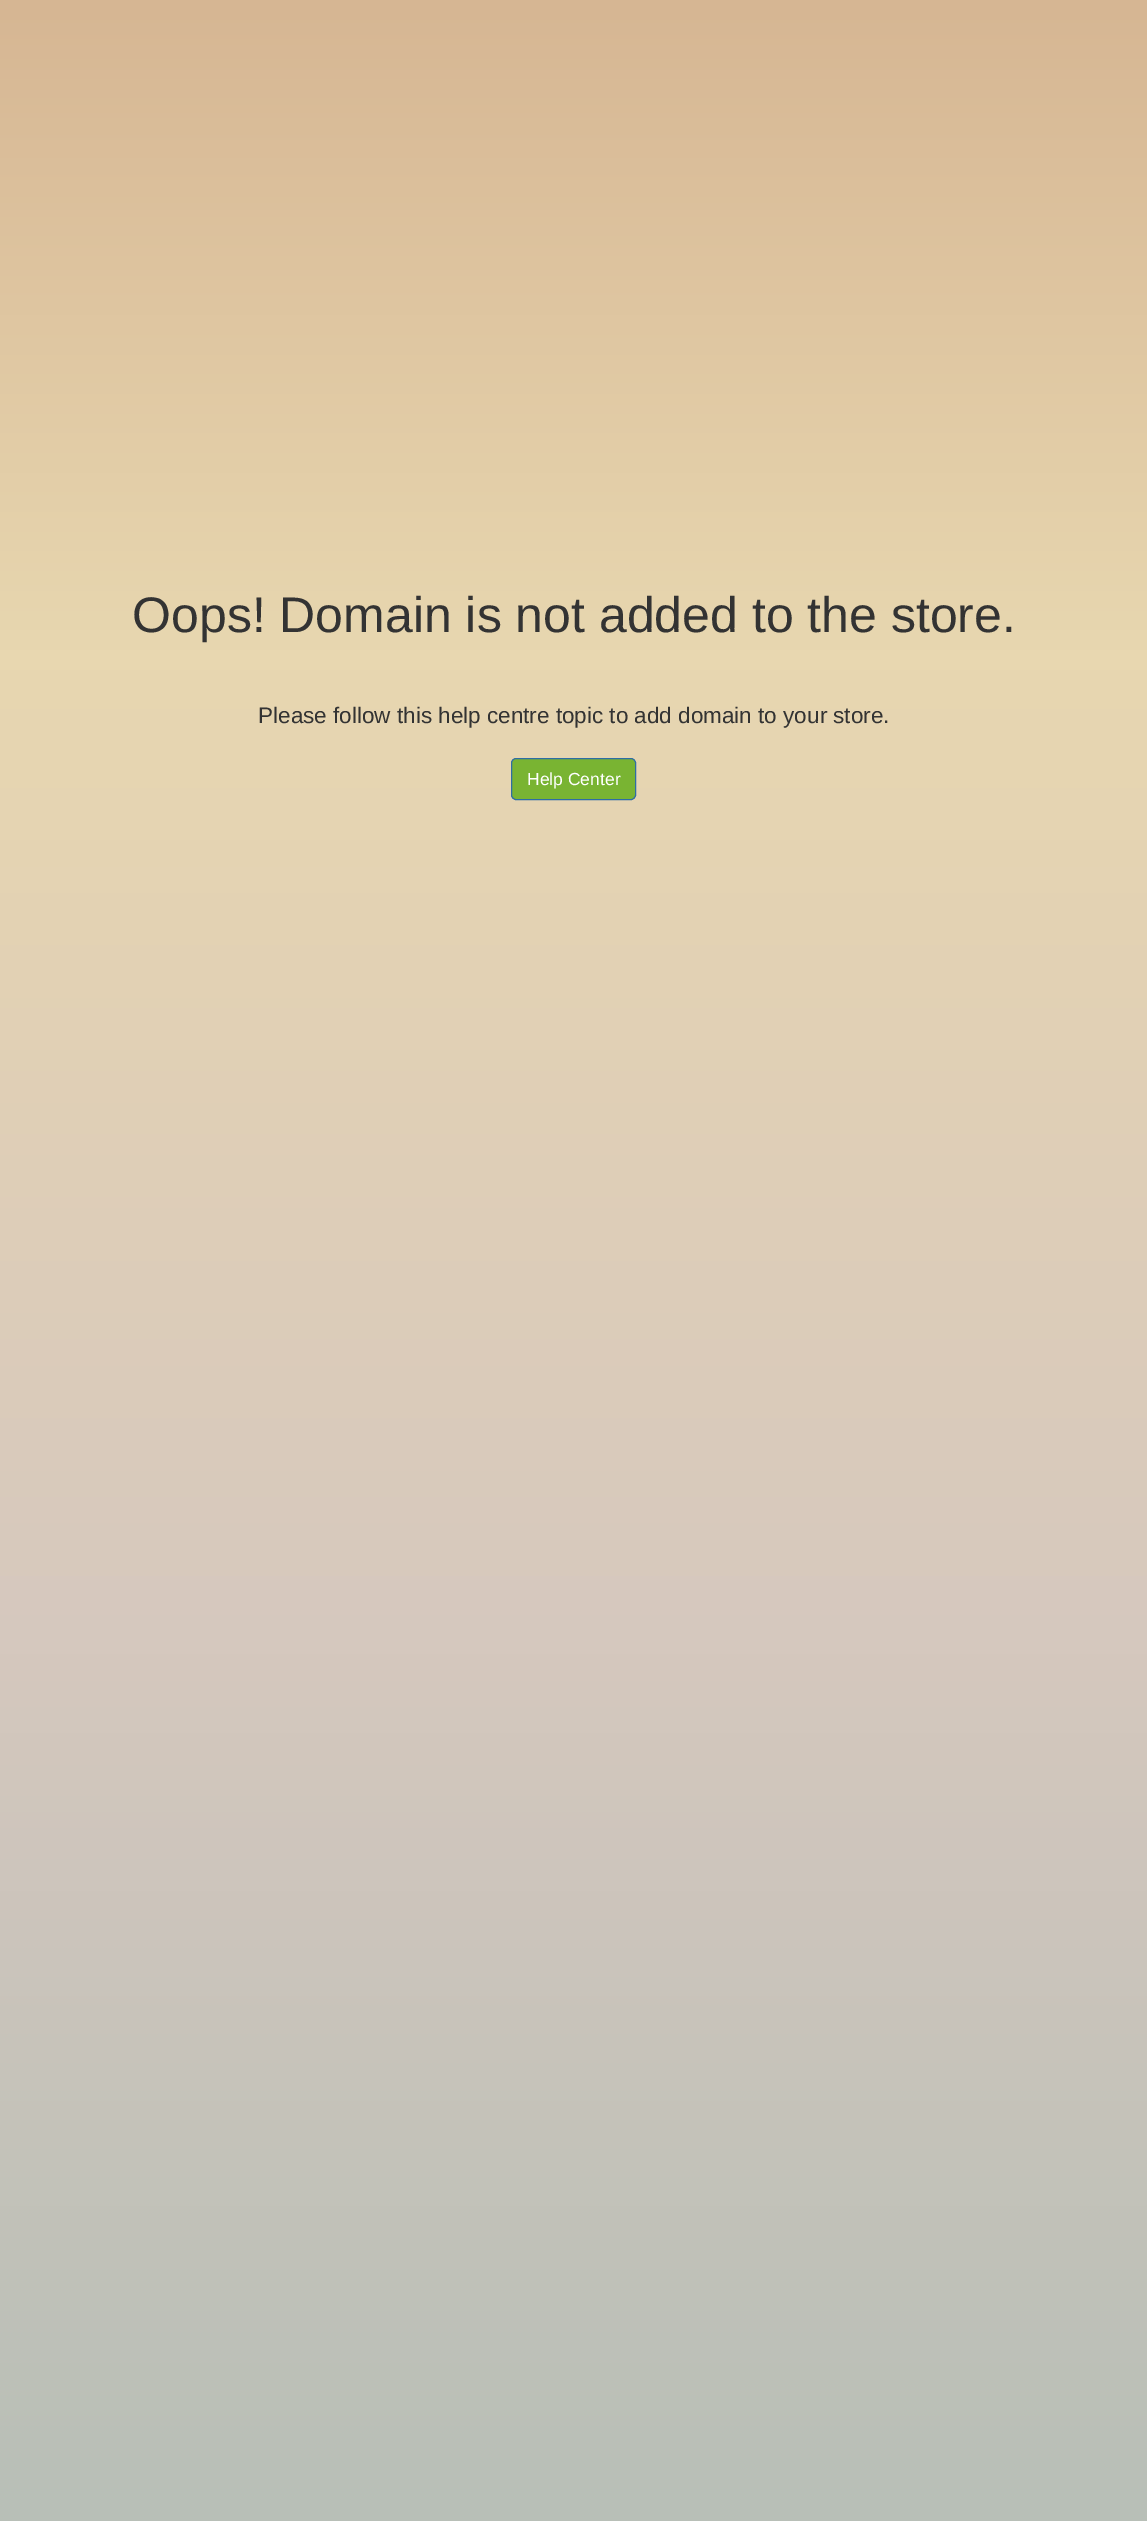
%!PS
<< /PageSize [1147 2521] >> setpagedevice
/rgb { 3 { 255 div 3 1 roll } repeat setrgbcolor } def
/font { [ exch dup neg 0 0 3 -1 roll 0 0 ] selectfont } def
/text { moveto show } def
/roundrect { 5 dict begin { /r /h /w /y /x } { exch def } forall
  x r add y moveto x w add y 2 copy h add r arct x w add y h add x 1 index r arct
  x y h add x y r arct x y 2 copy exch w add exch r arct closepath end } def
0 2521 translate 1 -1 scale
4 setmiterlimit
255 255 255 rgb
0 0 1147 2521 rectfill
gsave 0 0 moveto 1147 0 rlineto 0 2521 rlineto -1147 0 rlineto closepath clip newpath
<< /ShadingType 2 /ColorSpace /DeviceRGB /Coords [574 0 574 2521] /Extend [true true] /Function << /FunctionType 3 /Domain [0 1] /Functions [<< /FunctionType 2 /Domain [0 1] /C0 [0.839 0.714 0.576] /C1 [0.91 0.843 0.69] /N 1 >> << /FunctionType 2 /Domain [0 1] /C0 [0.91 0.843 0.69] /C1 [0.839 0.784 0.745] /N 1 >> << /FunctionType 2 /Domain [0 1] /C0 [0.839 0.784 0.745] /C1 [0.722 0.749 0.718] /N 1 >>] /Bounds [0.26 0.64] /Encode [0 1 0 1 0 1] >> >> shfill grestore
121 180 50 rgb
511.5 758.5 124 41 4.5 roundrect gsave fill grestore
46 109 164 rgb
stroke
/LiberationSans-Regular 50 font
51 51 51 rgb
(Oops! Domain is not added to the store.) 132 632 text
/LiberationSans-Regular 22.5 font
(Please follow this help centre topic to add domain to your store.) 258 723 text
/LiberationSans-Regular 17.5 font
255 255 255 rgb
(Help Center) 527 785 text
showpage
